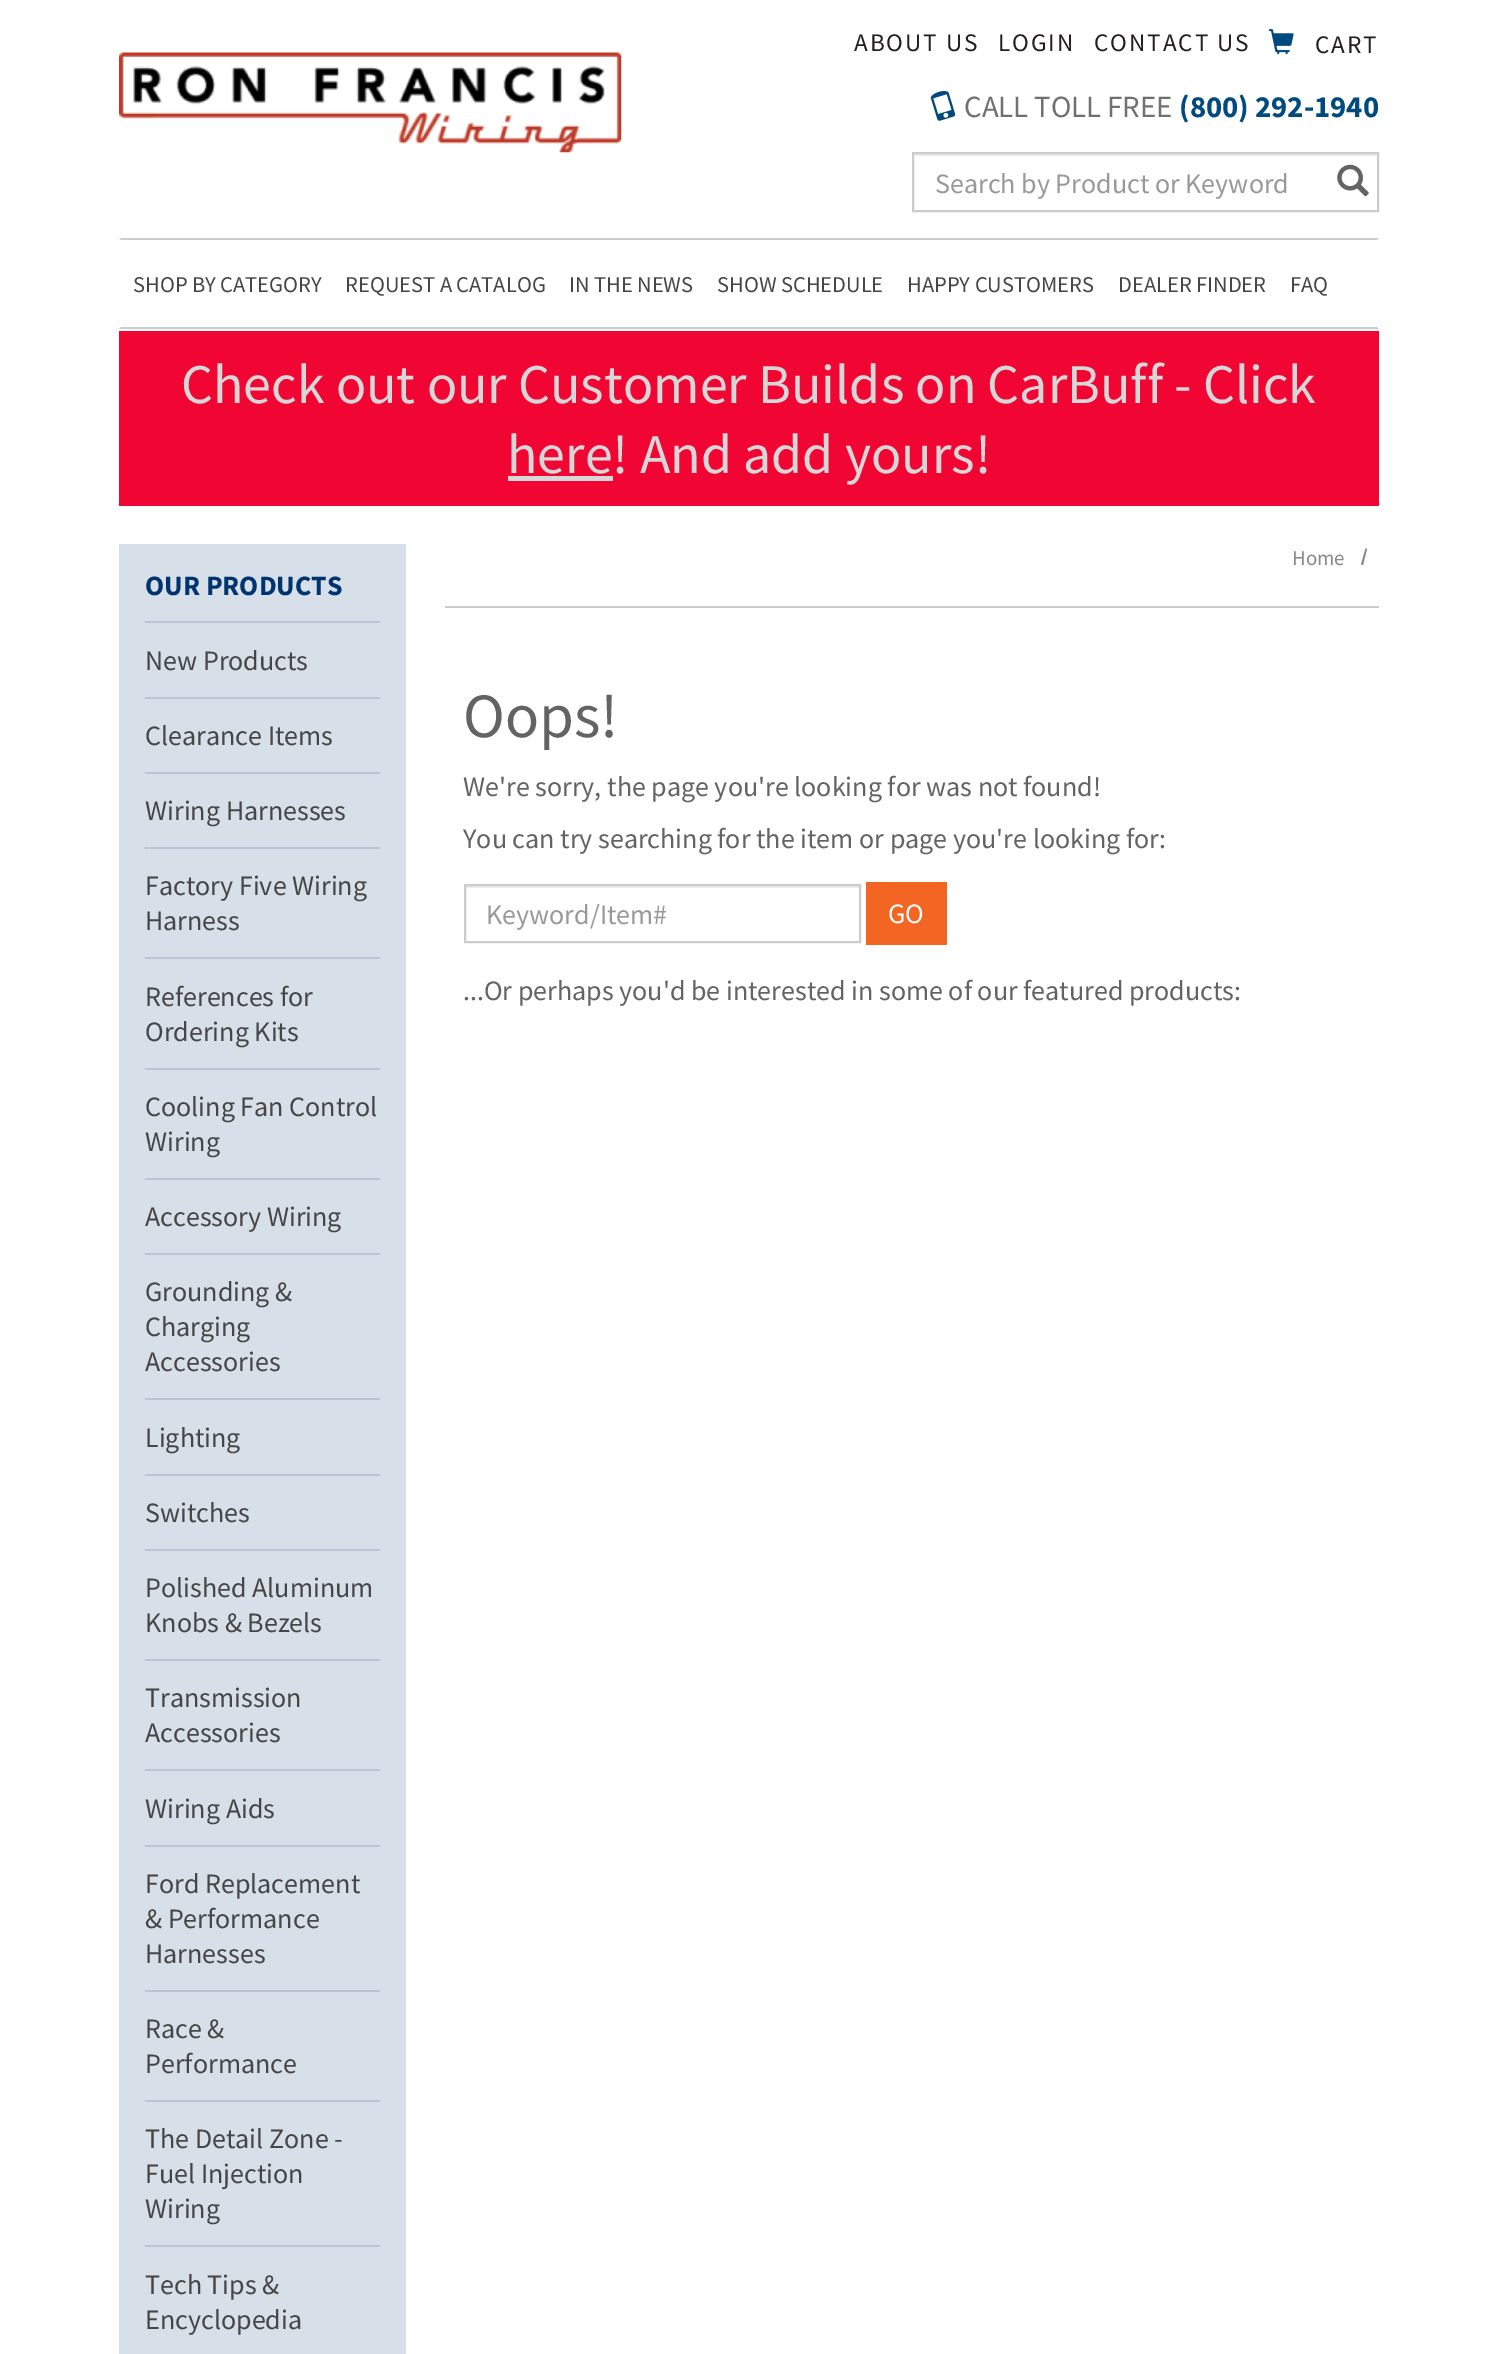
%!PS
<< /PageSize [1497 2354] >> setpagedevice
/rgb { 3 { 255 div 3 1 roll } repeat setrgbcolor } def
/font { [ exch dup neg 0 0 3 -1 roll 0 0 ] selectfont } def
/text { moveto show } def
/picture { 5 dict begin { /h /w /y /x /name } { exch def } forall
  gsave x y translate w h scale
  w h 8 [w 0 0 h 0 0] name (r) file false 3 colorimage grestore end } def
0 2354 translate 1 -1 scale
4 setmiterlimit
255 255 255 rgb
0 0 1497 2354 rectfill
(img_01.rgb) 119 52 503 101 picture
(img_02.rgb) 1268 29 26 26 picture
(img_03.rgb) 930 91 26 30 picture
236 236 236 rgb
914 154 463 2 rectfill
204 204 204 rgb
2 setlinewidth
913 153 465 58 rectstroke
(img_04.rgb) 1337 164 32 33 picture
119 238 moveto 1260 0 rlineto -2 2 rlineto -1256 0 rlineto closepath fill
1379 329 moveto -1260 0 rlineto 2 -2 rlineto 1256 0 rlineto closepath fill
240 5 51 rgb
119 331 1260 175 rectfill
215 215 215 rgb
508 476 105 5 rectfill
215 224 232 rgb
119 544 287 1810 rectfill
185 197 215 rgb
145 621 235 2 rectfill
145 697 235 2 rectfill
145 772 235 2 rectfill
145 847 235 2 rectfill
145 957 235 2 rectfill
145 1068 235 2 rectfill
145 1178 235 2 rectfill
145 1253 235 2 rectfill
145 1398 235 2 rectfill
145 1474 235 2 rectfill
145 1549 235 2 rectfill
145 1659 235 2 rectfill
145 1769 235 2 rectfill
145 1845 235 2 rectfill
145 1990 235 2 rectfill
145 2100 235 2 rectfill
145 2245 235 2 rectfill
204 204 204 rgb
445 606 934 2 rectfill
137 137 137 rgb
1365.5 548.5 moveto 1.5 0.5 rlineto -4 16 rlineto -2 -0.5 rlineto closepath fill
236 236 236 rgb
466 886 393 2 rectfill
204 204 204 rgb
465 885 395 57 rectstroke
242 101 34 rgb
866 882 81 63 rectfill
/SourceSansPro-Regular 25.25 font
35 31 32 rgb
854 51 moveto 1.9 0 (ABOUT US) ashow
998 51 moveto 1.9 0 (LOGIN) ashow
1094 51 moveto 1.9 0 (CONTACT US) ashow
1315 53 moveto 1.9 0 (CART) ashow
/SourceSansPro-Regular 30.75 font
112 112 112 rgb
(CALL TOLL FREE) 964 117 text
/SourceSansPro-Bold 30.75 font
0 74 128 rgb
(\(800\) 292-1940) 1179 117 text
/SourceSansPro-Regular 28 font
153 153 153 rgb
(Search by Product or Keyword) 935 193 text
/SourceSansPro-Regular 22.5 font
70 70 70 rgb
(SHOP BY CATEGORY) 133 292 text
(REQUEST A CATALOG) 345 292 text
(IN THE NEWS) 569 292 text
(SHOW SCHEDULE) 717 292 text
(HAPPY CUSTOMERS) 907 292 text
(DEALER FINDER) 1118 292 text
(FAQ) 1290 292 text
/SourceSansPro-Regular 56 font
215 215 215 rgb
(Check out our Customer Builds on CarBuff - Click) 181 403 text
(here! And add yours!) 507 473 text
/SourceSansPro-Bold 28 font
0 52 113 rgb
(OUR PRODUCTS) 145 595 text
/SourceSansPro-Regular 28 font
70 70 70 rgb
(New Products) 145 670 text
(Clearance Items) 145 745 text
(Wiring Harnesses) 145 820 text
(Factory Five Wiring) 145 895 text
(Harness) 145 930 text
(References for) 145 1006 text
(Ordering Kits) 145 1041 text
(Cooling Fan Control) 145 1116 text
(Wiring) 145 1151 text
(Accessory Wiring) 145 1226 text
(Grounding &) 145 1301 text
(Charging) 145 1336 text
(Accessories) 145 1371 text
(Lighting) 145 1447 text
(Switches) 145 1522 text
(Polished Aluminum) 145 1597 text
(Knobs & Bezels) 145 1632 text
(Transmission) 145 1707 text
(Accessories) 145 1742 text
(Wiring Aids) 145 1818 text
(Ford Replacement) 145 1893 text
(& Performance) 145 1928 text
(Harnesses) 145 1963 text
(Race &) 145 2038 text
(Performance) 145 2073 text
(The Detail Zone -) 145 2148 text
(Fuel Injection) 145 2183 text
(Wiring) 145 2218 text
(Tech Tips &) 145 2294 text
(Encyclopedia) 145 2329 text
/SourceSansPro-Regular 21 font
137 137 137 rgb
(Home) 1292 565 text
/SourceSansPro-Regular 63 font
99 99 99 rgb
(Oops!) 463 737 text
/SourceSansPro-Regular 28 font
(We're sorry, the page you're looking for was not found!) 463 796 text
(You can try searching for the item or page you're looking for:) 463 848 text
153 153 153 rgb
(Keyword/Item#) 486 924 text
255 255 255 rgb
(GO) 888 923 text
99 99 99 rgb
(...Or perhaps you'd be interested in some of our featured products:) 463 1000 text
showpage
